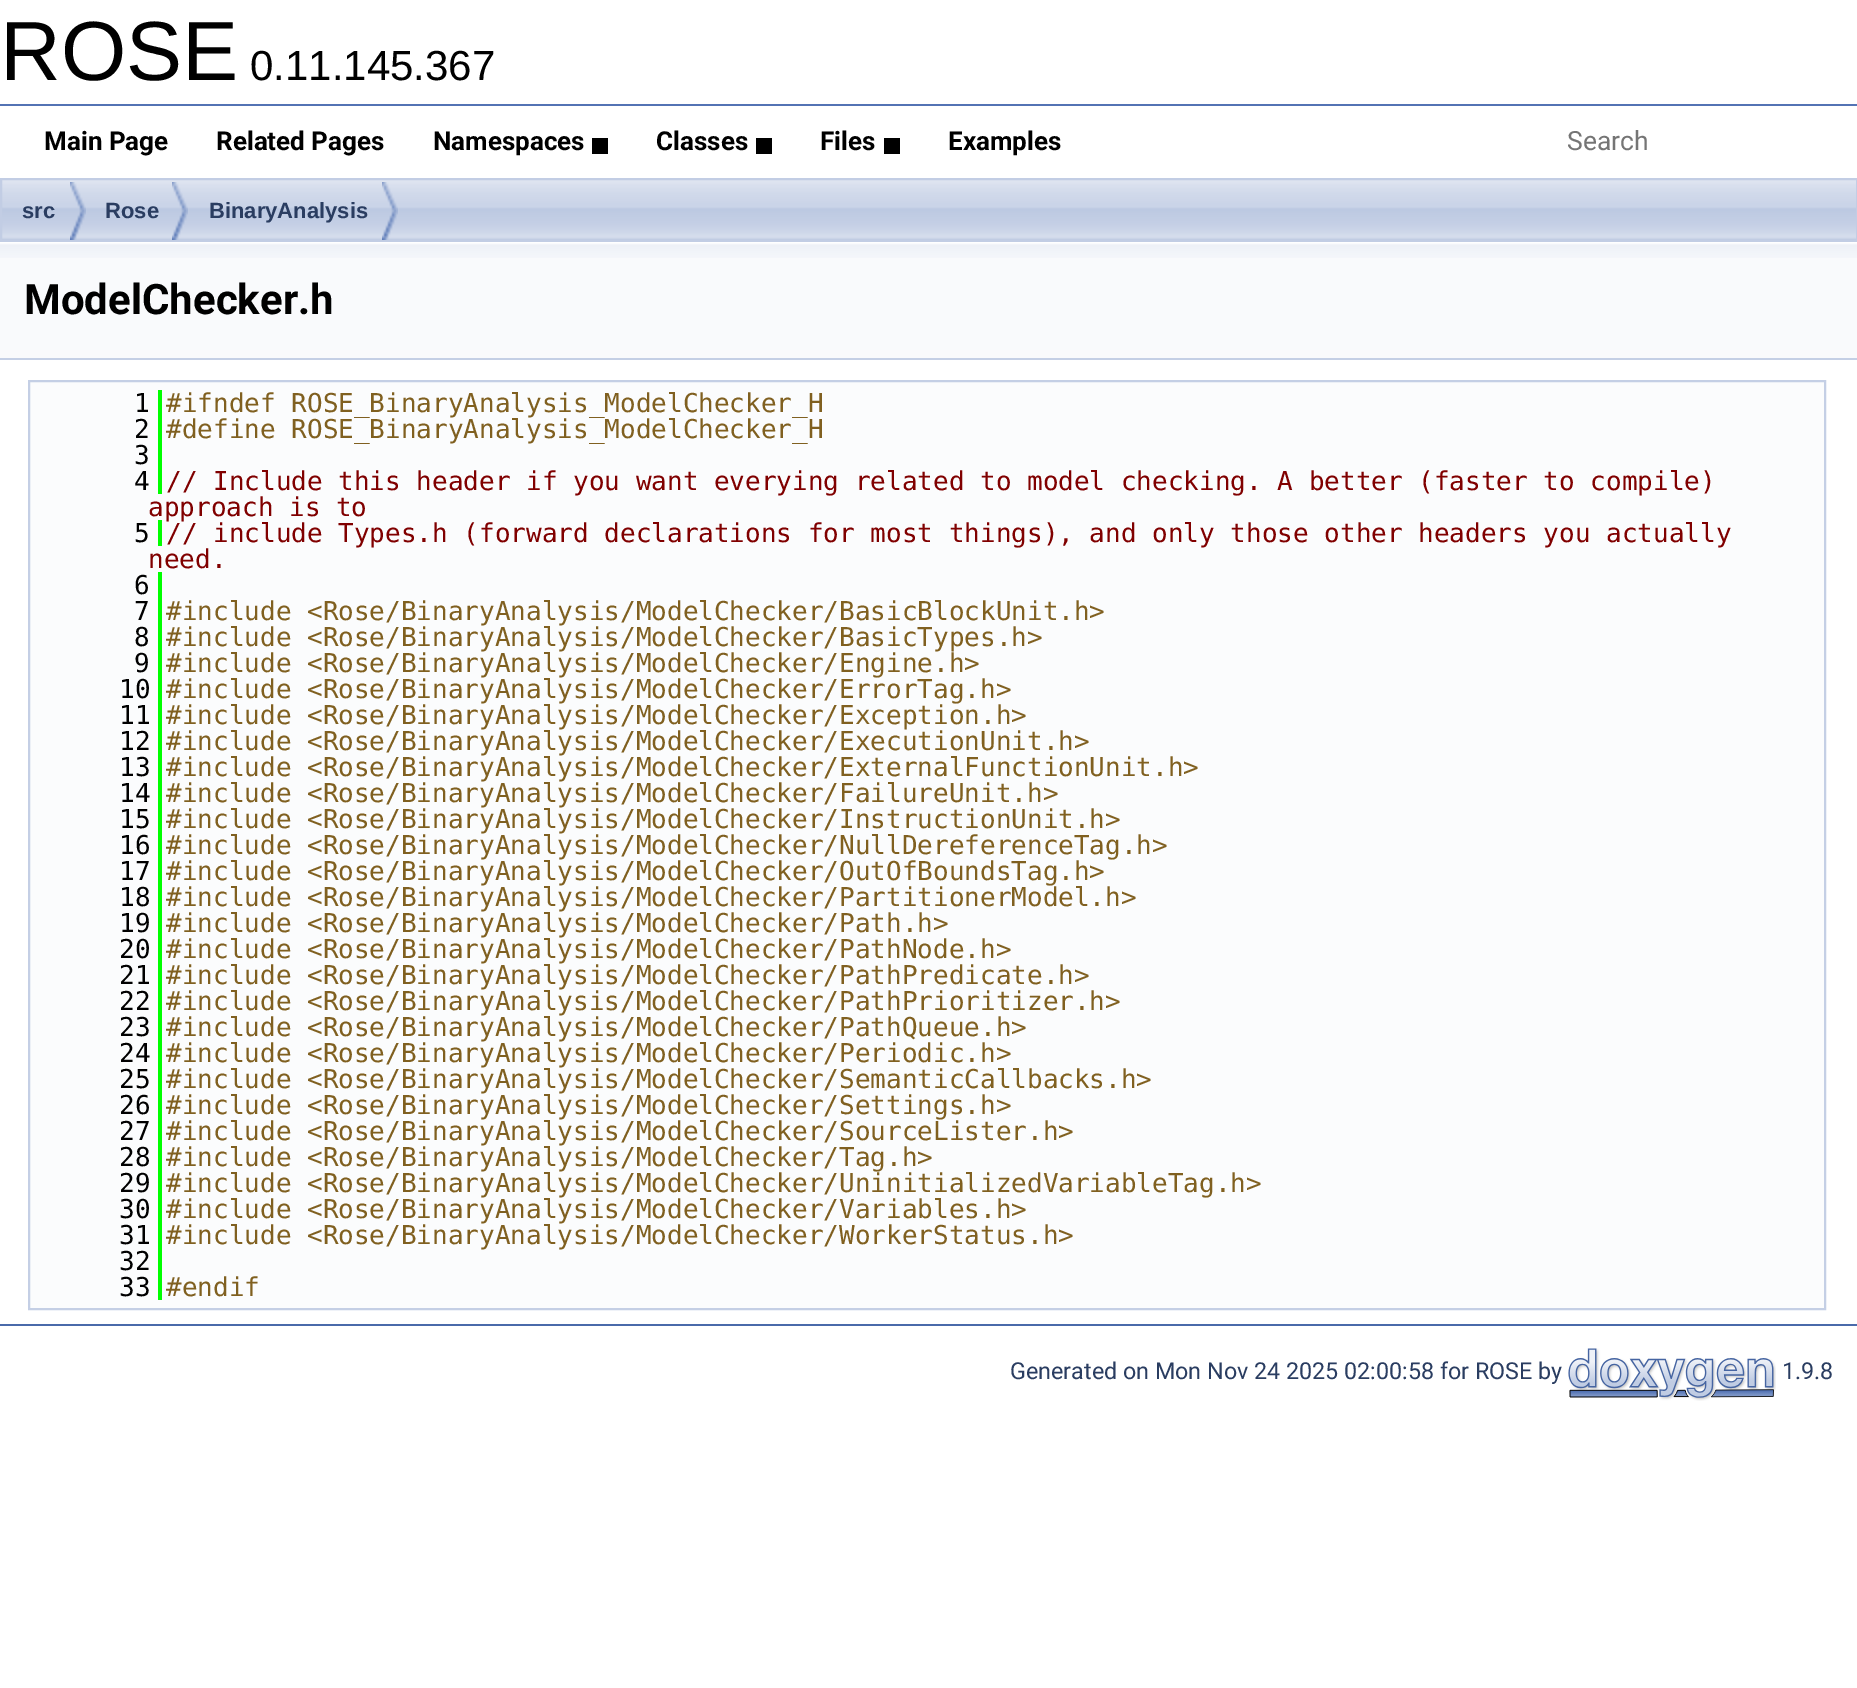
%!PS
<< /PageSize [1857 1688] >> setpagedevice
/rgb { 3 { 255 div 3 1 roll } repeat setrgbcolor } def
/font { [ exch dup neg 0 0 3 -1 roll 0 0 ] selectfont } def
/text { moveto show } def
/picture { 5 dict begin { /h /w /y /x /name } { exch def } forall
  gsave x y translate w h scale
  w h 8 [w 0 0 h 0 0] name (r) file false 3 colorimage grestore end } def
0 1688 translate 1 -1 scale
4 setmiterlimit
255 255 255 rgb
0 0 1857 1688 rectfill
83 115 180 rgb
0 104 1857 2 rectfill
0 0 0 rgb
592 138 16 8 rectfill
600 138 8 16 rectfill
592 146 16 8 rectfill
756 138 16 8 rectfill
764 138 8 16 rectfill
756 146 16 8 rectfill
884 138 16 8 rectfill
892 138 8 16 rectfill
884 146 16 8 rectfill
(img_01.rgb) 2 180 1854 60 picture
194 205 228 rgb
2 setlinewidth
1 179 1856 62 rectstroke
(img_02.rgb) 70 182 16 58 picture
(img_02.rgb) 172 182 16 58 picture
(img_02.rgb) 382 182 16 58 picture
249 250 252 rgb
0 258 1857 100 rectfill
(img_03.rgb) 0 242 1857 16 picture
196 207 229 rgb
0 358 1857 2 rectfill
251 252 253 rgb
29 381 moveto 1796 0 rlineto 0 928 rlineto -1796 0 rlineto closepath gsave fill grestore
196 207 229 rgb
stroke
0 255 0 rgb
158 390 4 104 rectfill
158 572 4 728 rectfill
74 106 170 rgb
0 1324 1857 2 rectfill
(img_04.rgb) 1568 1348 208 53 picture
/LiberationSans-Regular 84 font
0 0 0 rgb
(ROSE) 0 80 text
/LiberationSans-Regular 42 font
(0.11.145.367) 250 80 text
/Roboto-Bold 26 font
(Main Page) 44 150 text
(Related Pages) 216 150 text
(Namespaces) 433 150 text
(Classes) 656 150 text
(Files) 820 150 text
(Examples) 948 150 text
/Roboto-Regular 26.5 font
117 117 117 rgb
(Search) 1567 150 text
/LiberationSans-Bold 22 font
42 61 97 rgb
(src) 22 218 text
(Rose) 105 218 text
(BinaryAnalysis) 209 218 text
/Roboto-Bold 42 font
0 0 0 rgb
(ModelChecker.h) 24 314 text
/DejaVuSansMono-Regular 26 font
(1) 134 412 text
128 96 32 rgb
(#ifndef ROSE_BinaryAnalysis_ModelChecker_H) 166 412 text
0 0 0 rgb
(2) 134 438 text
128 96 32 rgb
(#define ROSE_BinaryAnalysis_ModelChecker_H) 166 438 text
0 0 0 rgb
(3) 134 464 text
(4) 134 490 text
128 0 0 rgb
(// Include this header if you want everying related to model checking. A better \(faster to compile\)) 166 490 text
(approach is to) 148 516 text
0 255 0 rgb
158 520 4 26 rectfill
0 0 0 rgb
(5) 134 542 text
128 0 0 rgb
(// include Types.h \(forward declarations for most things\), and only those other headers you actually) 166 542 text
(need.) 148 568 text
0 0 0 rgb
(6) 134 594 text
(7) 134 620 text
128 96 32 rgb
(#include <Rose/BinaryAnalysis/ModelChecker/BasicBlockUnit.h>) 166 620 text
0 0 0 rgb
(8) 134 646 text
128 96 32 rgb
(#include <Rose/BinaryAnalysis/ModelChecker/BasicTypes.h>) 166 646 text
0 0 0 rgb
(9) 134 672 text
128 96 32 rgb
(#include <Rose/BinaryAnalysis/ModelChecker/Engine.h>) 166 672 text
0 0 0 rgb
(10) 119 698 text
128 96 32 rgb
(#include <Rose/BinaryAnalysis/ModelChecker/ErrorTag.h>) 166 698 text
0 0 0 rgb
(11) 119 724 text
128 96 32 rgb
(#include <Rose/BinaryAnalysis/ModelChecker/Exception.h>) 166 724 text
0 0 0 rgb
(12) 119 750 text
128 96 32 rgb
(#include <Rose/BinaryAnalysis/ModelChecker/ExecutionUnit.h>) 166 750 text
0 0 0 rgb
(13) 119 776 text
128 96 32 rgb
(#include <Rose/BinaryAnalysis/ModelChecker/ExternalFunctionUnit.h>) 166 776 text
0 0 0 rgb
(14) 119 802 text
128 96 32 rgb
(#include <Rose/BinaryAnalysis/ModelChecker/FailureUnit.h>) 166 802 text
0 0 0 rgb
(15) 119 828 text
128 96 32 rgb
(#include <Rose/BinaryAnalysis/ModelChecker/InstructionUnit.h>) 166 828 text
0 0 0 rgb
(16) 119 854 text
128 96 32 rgb
(#include <Rose/BinaryAnalysis/ModelChecker/NullDereferenceTag.h>) 166 854 text
0 0 0 rgb
(17) 119 880 text
128 96 32 rgb
(#include <Rose/BinaryAnalysis/ModelChecker/OutOfBoundsTag.h>) 166 880 text
0 0 0 rgb
(18) 119 906 text
128 96 32 rgb
(#include <Rose/BinaryAnalysis/ModelChecker/PartitionerModel.h>) 166 906 text
0 0 0 rgb
(19) 119 932 text
128 96 32 rgb
(#include <Rose/BinaryAnalysis/ModelChecker/Path.h>) 166 932 text
0 0 0 rgb
(20) 119 958 text
128 96 32 rgb
(#include <Rose/BinaryAnalysis/ModelChecker/PathNode.h>) 166 958 text
0 0 0 rgb
(21) 119 984 text
128 96 32 rgb
(#include <Rose/BinaryAnalysis/ModelChecker/PathPredicate.h>) 166 984 text
0 0 0 rgb
(22) 119 1010 text
128 96 32 rgb
(#include <Rose/BinaryAnalysis/ModelChecker/PathPrioritizer.h>) 166 1010 text
0 0 0 rgb
(23) 119 1036 text
128 96 32 rgb
(#include <Rose/BinaryAnalysis/ModelChecker/PathQueue.h>) 166 1036 text
0 0 0 rgb
(24) 119 1062 text
128 96 32 rgb
(#include <Rose/BinaryAnalysis/ModelChecker/Periodic.h>) 166 1062 text
0 0 0 rgb
(25) 119 1088 text
128 96 32 rgb
(#include <Rose/BinaryAnalysis/ModelChecker/SemanticCallbacks.h>) 166 1088 text
0 0 0 rgb
(26) 119 1114 text
128 96 32 rgb
(#include <Rose/BinaryAnalysis/ModelChecker/Settings.h>) 166 1114 text
0 0 0 rgb
(27) 119 1140 text
128 96 32 rgb
(#include <Rose/BinaryAnalysis/ModelChecker/SourceLister.h>) 166 1140 text
0 0 0 rgb
(28) 119 1166 text
128 96 32 rgb
(#include <Rose/BinaryAnalysis/ModelChecker/Tag.h>) 166 1166 text
0 0 0 rgb
(29) 119 1192 text
128 96 32 rgb
(#include <Rose/BinaryAnalysis/ModelChecker/UninitializedVariableTag.h>) 166 1192 text
0 0 0 rgb
(30) 119 1218 text
128 96 32 rgb
(#include <Rose/BinaryAnalysis/ModelChecker/Variables.h>) 166 1218 text
0 0 0 rgb
(31) 119 1244 text
128 96 32 rgb
(#include <Rose/BinaryAnalysis/ModelChecker/WorkerStatus.h>) 166 1244 text
0 0 0 rgb
(32) 119 1270 text
(33) 119 1296 text
128 96 32 rgb
(#endif) 166 1296 text
/Roboto-Regular 23.3 font
42 61 97 rgb
(Generated on Mon Nov 24 2025 02:00:58 for ROSE by) 1010 1379 text
(1.9.8) 1782 1379 text
showpage
